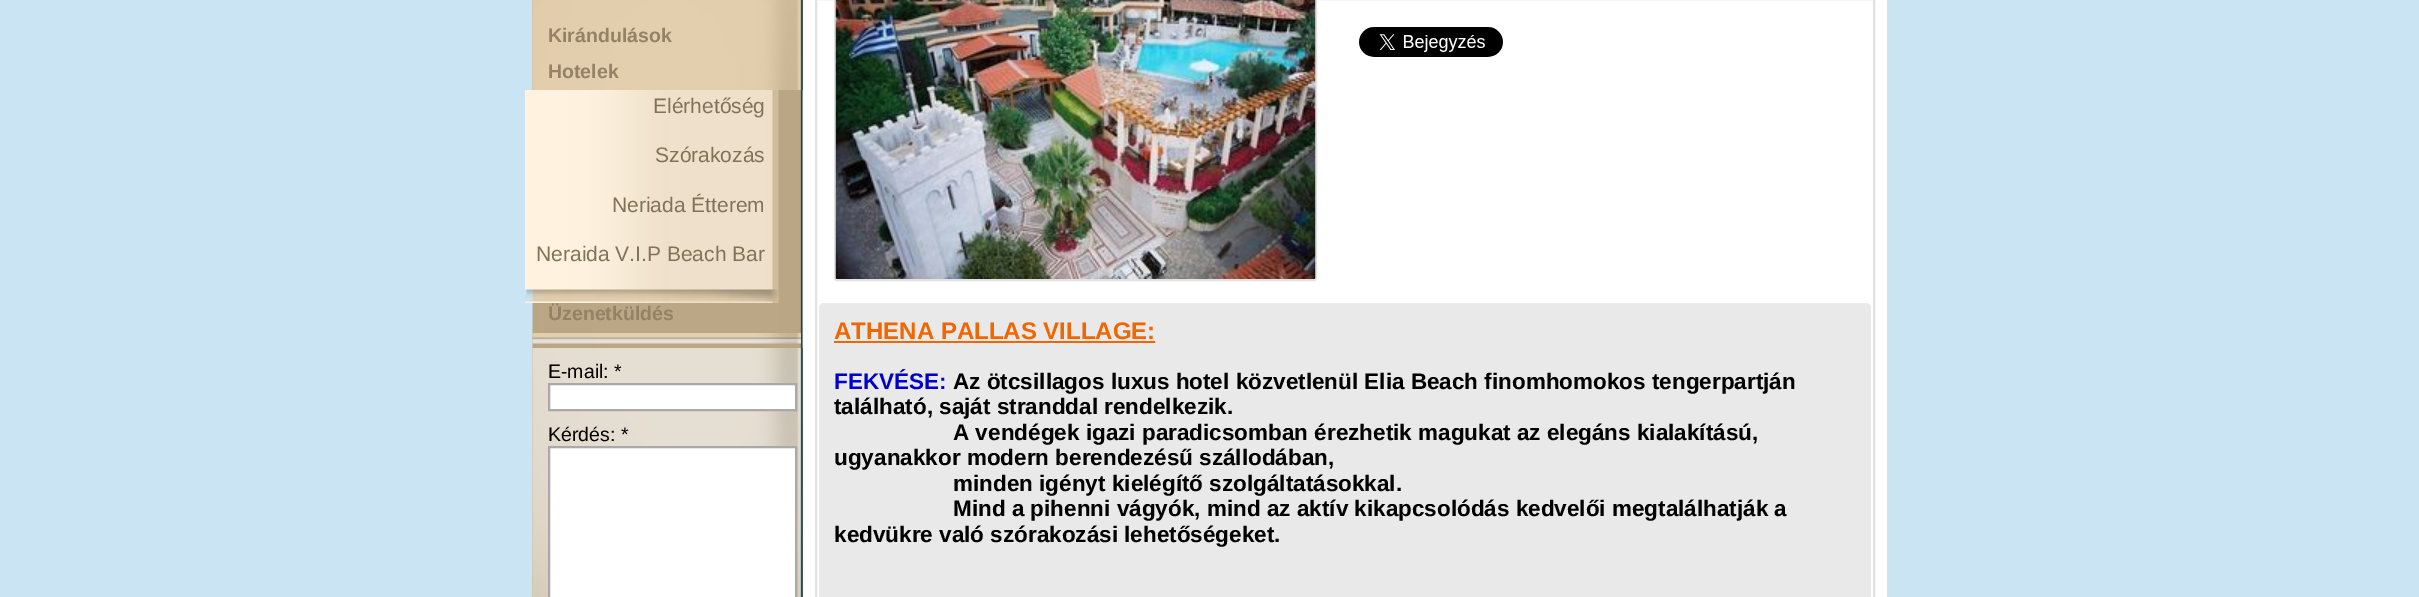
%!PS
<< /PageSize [2419 597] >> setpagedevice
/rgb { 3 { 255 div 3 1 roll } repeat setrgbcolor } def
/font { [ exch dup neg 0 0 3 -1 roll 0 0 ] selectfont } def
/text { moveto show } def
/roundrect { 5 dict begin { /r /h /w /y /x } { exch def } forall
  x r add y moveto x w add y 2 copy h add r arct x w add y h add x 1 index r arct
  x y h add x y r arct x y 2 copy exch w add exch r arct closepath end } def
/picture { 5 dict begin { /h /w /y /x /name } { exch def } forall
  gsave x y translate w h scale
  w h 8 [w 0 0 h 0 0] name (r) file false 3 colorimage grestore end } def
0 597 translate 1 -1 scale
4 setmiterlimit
202 228 243 rgb
0 0 2419 597 rectfill
(img_01.rgb) 532 0 1355 597 picture
(img_02.rgb) 532 0 271 90 picture
(img_03.rgb) 525 90 254 213 picture
(img_04.rgb) 525 289 254 13 picture
(img_05.rgb) 532 333 269 11 picture
(img_06.rgb) 532 348 271 249 picture
255 255 255 rgb
549 384 moveto 247 0 rlineto 0 26 rlineto -247 0 rlineto closepath gsave fill grestore
169 169 169 rgb
2 setlinewidth
stroke
255 255 255 rgb
549 447 moveto 247 0 rlineto 0 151 rlineto -247 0 rlineto closepath gsave fill grestore
169 169 169 rgb
stroke
226 226 226 rgb
816 -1 1058 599 rectstroke
835 -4 481 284 2 roundrect stroke
(img_07.rgb) 835 0 481 279 picture
(img_08.rgb) 1359 27 144 30 picture
233 233 233 rgb
819 303 1052 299 5 roundrect fill
242 102 0 rgb
834 341 321 2 rectfill
/LiberationSans-Bold 19.5 font
147 130 102 rgb
(Kirándulások) 548 42 text
(Hotelek) 548 78 text
/LiberationSans-Regular 21 font
130 114 87 rgb
(Elérhetőség) 653 113 text
(Szórakozás) 655 162 text
(Neriada Étterem) 612 212 text
(Neraida V.I.P Beach Bar) 536 261 text
/LiberationSans-Bold 19.5 font
147 130 102 rgb
(Üzenetküldés) 548 320 text
/LiberationSans-Regular 19.5 font
0 0 0 rgb
(E-mail: *) 548 378 text
(Kérdés: *) 548 441 text
/LiberationSans-Bold 24 font
242 102 0 rgb
(ATHENA PALLAS VILLAGE:) 834 339 text
/LiberationSans-Bold 22.5 font
0 0 204 rgb
(FEKVÉSE:) 834 389 text
0 0 0 rgb
(Az ötcsillagos luxus hotel közvetlenül Elia Beach finomhomokos tengerpartján) 953 389 text
(található, saját stranddal rendelkezik.) 834 414 text
(A vendégek igazi paradicsomban érezhetik magukat az elegáns kialakítású,) 953 440 text
(ugyanakkor modern berendezésű szállodában,) 834 465 text
(minden igényt kielégítő szolgáltatásokkal.) 953 491 text
(Mind a pihenni vágyók, mind az aktív kikapcsolódás kedvelői megtalálhatják a) 953 516 text
(kedvükre való szórakozási lehetőségeket.) 834 542 text
showpage
